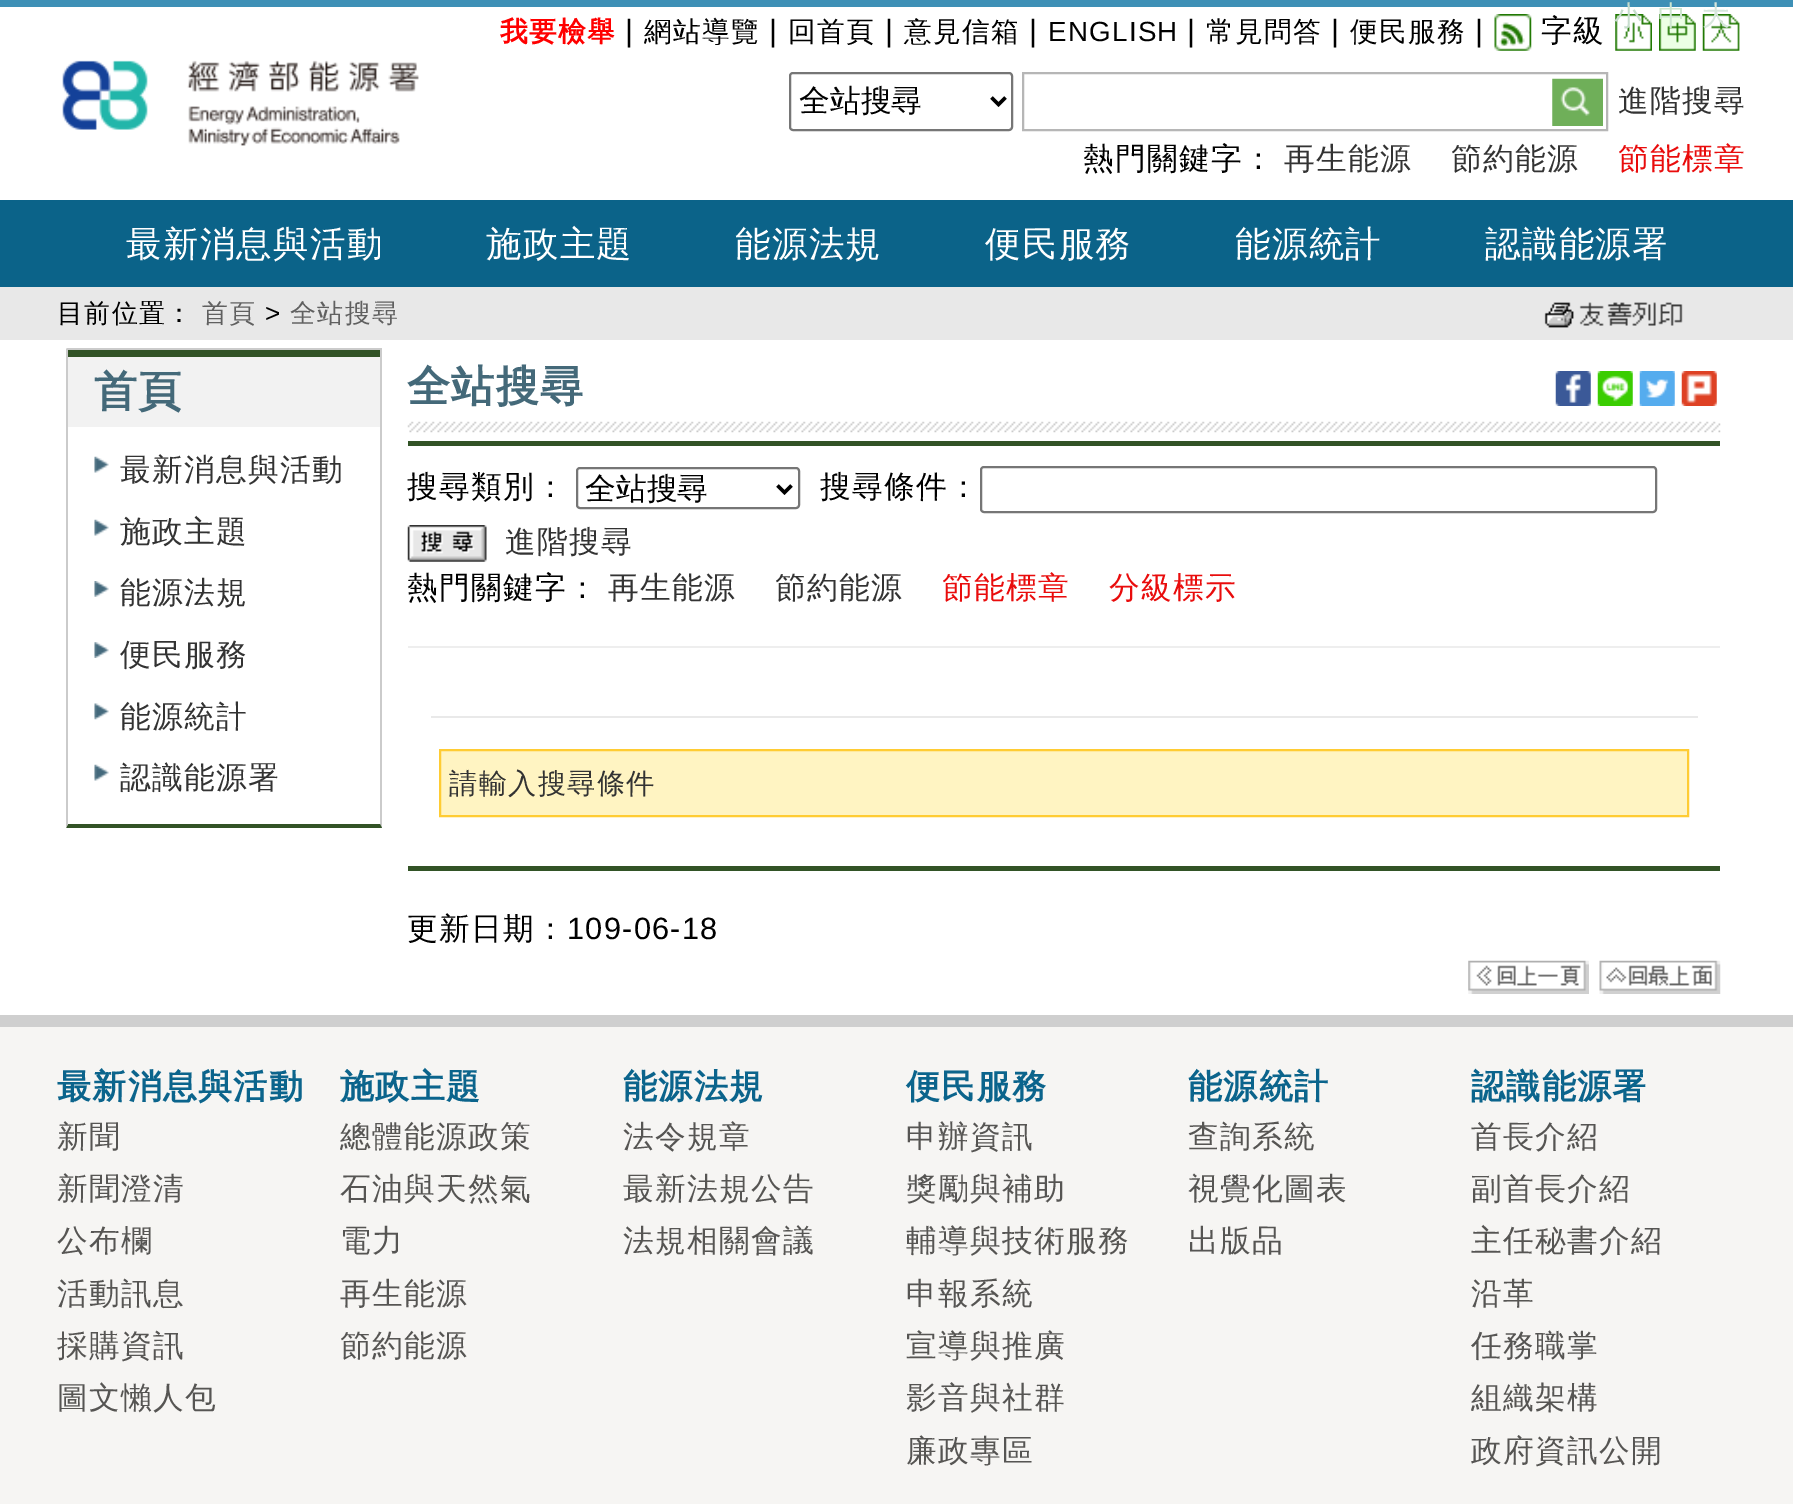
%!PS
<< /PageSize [1793 1504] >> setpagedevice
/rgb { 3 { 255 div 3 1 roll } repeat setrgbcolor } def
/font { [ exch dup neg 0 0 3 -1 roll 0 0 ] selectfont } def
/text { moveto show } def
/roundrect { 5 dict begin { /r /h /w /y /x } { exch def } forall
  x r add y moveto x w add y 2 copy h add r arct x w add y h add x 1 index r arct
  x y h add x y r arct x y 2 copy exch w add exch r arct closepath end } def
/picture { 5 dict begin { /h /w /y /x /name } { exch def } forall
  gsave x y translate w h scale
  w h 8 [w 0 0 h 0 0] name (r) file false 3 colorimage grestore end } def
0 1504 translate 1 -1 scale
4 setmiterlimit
255 255 255 rgb
0 0 1793 1504 rectfill
62 144 182 rgb
0 0 1793 7 rectfill
(img_01.rgb) 1494 14 38 37 picture
(img_02.rgb) 1615 14 37 37 picture
(img_03.rgb) 1659 14 37 37 picture
(img_04.rgb) 1702 14 38 37 picture
(img_05.rgb) 62 60 357 86 picture
118 118 118 rgb
2 setlinewidth
790 73 222 57 3 roundrect stroke
0 0 0 rgb
3.5 setlinewidth
991.5 97.5 moveto 7 7 rlineto 7 -7 rlineto stroke
182 182 182 rgb
2 setlinewidth
1023 73 584 57 rectstroke
(img_06.rgb) 1552 78 51 48 picture
11 99 137 rgb
0 200 1793 87 rectfill
232 232 232 rgb
0 287 1793 53 rectfill
(img_07.rgb) 1544 302 139 26 picture
203 203 203 rgb
67 348 315 2 rectfill
382 348 moveto 0 480 rlineto -2 -4 rlineto 0 -474 rlineto closepath fill
50 83 38 rgb
382 828 moveto -316 0 rlineto 2 -4 rlineto 312 0 rlineto closepath fill
203 203 203 rgb
66 828 moveto 0 -480 rlineto 2 2 rlineto 0 474 rlineto closepath fill
242 242 242 rgb
68 357 312 70 rectfill
50 83 38 rgb
68 350 312 7 rectfill
(img_08.rgb) 94 456 15 17 picture
(img_08.rgb) 94 519 15 17 picture
(img_09.rgb) 94 581 15 16 picture
(img_10.rgb) 94 642 15 16 picture
(img_11.rgb) 94 703 15 17 picture
(img_08.rgb) 94 764 15 17 picture
(img_12.rgb) 407 421 1314 12 picture
(img_13.rgb) 1555 371 36 35 picture
(img_14.rgb) 1597 371 36 35 picture
(img_15.rgb) 1639 371 36 35 picture
(img_16.rgb) 1681 371 36 35 picture
408 441 1312 5 rectfill
408 866 1312 5 rectfill
118 118 118 rgb
577 468 222 40 3 roundrect stroke
0 0 0 rgb
3.5 setlinewidth
777.5 485.5 moveto 7 7 rlineto 7 -7 rlineto stroke
118 118 118 rgb
2 setlinewidth
981 467 675 45 3 roundrect stroke
(img_17.rgb) 407 525 80 37 picture
238 238 238 rgb
408 646 1312 2 rectfill
233 233 233 rgb
431 716 1267 2 rectfill
255 244 194 rgb
440 750 moveto 1248 0 rlineto 0 66 rlineto -1248 0 rlineto closepath gsave fill grestore
255 204 51 rgb
stroke
(img_18.rgb) 1468 960 121 34 picture
(img_19.rgb) 1599 960 122 34 picture
246 245 243 rgb
0 1027 1793 477 rectfill
207 207 207 rgb
0 1015 1793 12 rectfill
/WenQuanYiZenHei-Bold 27.75 font
255 0 0 rgb
500 41 moveto 1.25 0 (我要檢舉) ashow
/LiberationSans-Regular 30.75 font
0 0 0 rgb
625 41 moveto 1.25 0 (|) ashow
/WenQuanYiZenHei-Medium 27.75 font
644 41 moveto 1.25 0 (網站導覽) ashow
/LiberationSans-Regular 30.75 font
769 41 moveto 1.25 0 (|) ashow
/WenQuanYiZenHei-Medium 27.75 font
788 41 moveto 1.25 0 (回首頁) ashow
/LiberationSans-Regular 30.75 font
885 41 moveto 1.25 0 (|) ashow
/WenQuanYiZenHei-Medium 27.75 font
904 41 moveto 1.25 0 (意見信箱) ashow
/LiberationSans-Regular 30.75 font
1029 41 moveto 1.25 0 (|) ashow
/LiberationSans-Regular 27.75 font
1048 41 moveto 1.25 0 (ENGLISH) ashow
/LiberationSans-Regular 30.75 font
1187 41 moveto 1.25 0 (|) ashow
/WenQuanYiZenHei-Medium 27.75 font
1206 41 moveto 1.25 0 (常見問答) ashow
/LiberationSans-Regular 30.75 font
1331 41 moveto 1.25 0 (|) ashow
/WenQuanYiZenHei-Medium 27.75 font
1350 41 moveto 1.25 0 (便民服務) ashow
/LiberationSans-Regular 30.75 font
1475 41 moveto 1.25 0 (|) ashow
/WenQuanYiZenHei-Medium 30.75 font
1541 41 moveto 1.25 0 (字級) ashow
/WenQuanYiZenHei-Medium 27.75 font
199 221 205 rgb
1614 25 moveto 1.25 0 (小) ashow
206 230 208 rgb
1658 25 moveto 1.25 0 (中) ashow
215 231 220 rgb
1702 25 moveto 1.25 0 (大) ashow
/WenQuanYiZenHei-Medium 30.75 font
0 0 0 rgb
(全站搜尋) 799 111 text
51 51 51 rgb
1618 111 moveto 1.25 0 (進階搜尋) ashow
0 0 0 rgb
1083 169 moveto 1.25 0 (熱門關鍵字：) ashow
51 51 51 rgb
1284 169 moveto 1.25 0 (再生能源) ashow
1451 169 moveto 1.25 0 (節約能源) ashow
233 12 12 rgb
1618 169 moveto 1.25 0 (節能標章) ashow
/WenQuanYiZenHei-Medium 35.5 font
255 255 255 rgb
126 256 moveto 1.25 0 (最新消息與活動) ashow
486 256 moveto 1.25 0 (施政主題) ashow
735 256 moveto 1.25 0 (能源法規) ashow
985 256 moveto 1.25 0 (便民服務) ashow
1235 256 moveto 1.25 0 (能源統計) ashow
1485 256 moveto 1.25 0 (認識能源署) ashow
/WenQuanYiZenHei-Medium 26 font
0 0 0 rgb
57 322 moveto 1.25 0 (目前位置：) ashow
96 96 96 rgb
202 322 moveto 1.25 0 (首頁) ashow
/LiberationSans-Regular 26 font
0 0 0 rgb
265 322 moveto 1.25 0 (>) ashow
/WenQuanYiZenHei-Medium 26 font
96 96 96 rgb
290 322 moveto 1.25 0 (全站搜尋) ashow
/WenQuanYiZenHei-Bold 43 font
68 105 121 rgb
94 406 moveto 1.25 0 (首頁) ashow
/WenQuanYiZenHei-Medium 30.75 font
51 51 51 rgb
120 480 moveto 1.25 0 (最新消息與活動) ashow
120 542 moveto 1.25 0 (施政主題) ashow
120 603 moveto 1.25 0 (能源法規) ashow
120 665 moveto 1.25 0 (便民服務) ashow
120 727 moveto 1.25 0 (能源統計) ashow
120 788 moveto 1.25 0 (認識能源署) ashow
/WenQuanYiZenHei-Bold 43 font
68 105 121 rgb
407 401 moveto 1.25 0 (全站搜尋) ashow
/WenQuanYiZenHei-Medium 30.75 font
0 0 0 rgb
407 497 moveto 1.25 0 (搜尋類別：) ashow
(全站搜尋) 585 499 text
820 497 moveto 1.25 0 (搜尋條件：) ashow
51 51 51 rgb
505 552 moveto 1.25 0 (進階搜尋) ashow
0 0 0 rgb
407 598 moveto 1.25 0 (熱門關鍵字：) ashow
51 51 51 rgb
608 598 moveto 1.25 0 (再生能源) ashow
775 598 moveto 1.25 0 (節約能源) ashow
233 12 12 rgb
942 598 moveto 1.25 0 (節能標章) ashow
1109 598 moveto 1.25 0 (分級標示) ashow
/WenQuanYiZenHei-Medium 28.25 font
51 51 51 rgb
449 793 moveto 1.25 0 (請輸入搜尋條件) ashow
/WenQuanYiZenHei-Medium 30.75 font
0 0 0 rgb
407 939 moveto 1.25 0 (更新日期：) ashow
/LiberationSans-Regular 30.75 font
567 939 moveto 1.25 0 (109-06-18) ashow
/WenQuanYiZenHei-Bold 34 font
11 100 140 rgb
57 1098 moveto 1.25 0 (最新消息與活動) ashow
/WenQuanYiZenHei-Medium 30.75 font
86 85 83 rgb
57 1147 moveto 1.25 0 (新聞) ashow
57 1199 moveto 1.25 0 (新聞澄清) ashow
57 1251 moveto 1.25 0 (公布欄) ashow
57 1304 moveto 1.25 0 (活動訊息) ashow
57 1356 moveto 1.25 0 (採購資訊) ashow
57 1408 moveto 1.25 0 (圖文懶人包) ashow
/WenQuanYiZenHei-Bold 34 font
11 100 140 rgb
340 1098 moveto 1.25 0 (施政主題) ashow
/WenQuanYiZenHei-Medium 30.75 font
86 85 83 rgb
340 1147 moveto 1.25 0 (總體能源政策) ashow
340 1199 moveto 1.25 0 (石油與天然氣) ashow
340 1251 moveto 1.25 0 (電力) ashow
340 1304 moveto 1.25 0 (再生能源) ashow
340 1356 moveto 1.25 0 (節約能源) ashow
/WenQuanYiZenHei-Bold 34 font
11 100 140 rgb
623 1098 moveto 1.25 0 (能源法規) ashow
/WenQuanYiZenHei-Medium 30.75 font
86 85 83 rgb
623 1147 moveto 1.25 0 (法令規章) ashow
623 1199 moveto 1.25 0 (最新法規公告) ashow
623 1251 moveto 1.25 0 (法規相關會議) ashow
/WenQuanYiZenHei-Bold 34 font
11 100 140 rgb
906 1098 moveto 1.25 0 (便民服務) ashow
/WenQuanYiZenHei-Medium 30.75 font
86 85 83 rgb
906 1147 moveto 1.25 0 (申辦資訊) ashow
906 1199 moveto 1.25 0 (獎勵與補助) ashow
906 1251 moveto 1.25 0 (輔導與技術服務) ashow
906 1304 moveto 1.25 0 (申報系統) ashow
906 1356 moveto 1.25 0 (宣導與推廣) ashow
906 1408 moveto 1.25 0 (影音與社群) ashow
906 1461 moveto 1.25 0 (廉政專區) ashow
/WenQuanYiZenHei-Bold 34 font
11 100 140 rgb
1188 1098 moveto 1.25 0 (能源統計) ashow
/WenQuanYiZenHei-Medium 30.75 font
86 85 83 rgb
1188 1147 moveto 1.25 0 (查詢系統) ashow
1188 1199 moveto 1.25 0 (視覺化圖表) ashow
1188 1251 moveto 1.25 0 (出版品) ashow
/WenQuanYiZenHei-Bold 34 font
11 100 140 rgb
1471 1098 moveto 1.25 0 (認識能源署) ashow
/WenQuanYiZenHei-Medium 30.75 font
86 85 83 rgb
1471 1147 moveto 1.25 0 (首長介紹) ashow
1471 1199 moveto 1.25 0 (副首長介紹) ashow
1471 1251 moveto 1.25 0 (主任秘書介紹) ashow
1471 1304 moveto 1.25 0 (沿革) ashow
1471 1356 moveto 1.25 0 (任務職掌) ashow
1471 1408 moveto 1.25 0 (組織架構) ashow
1471 1461 moveto 1.25 0 (政府資訊公開) ashow
showpage
